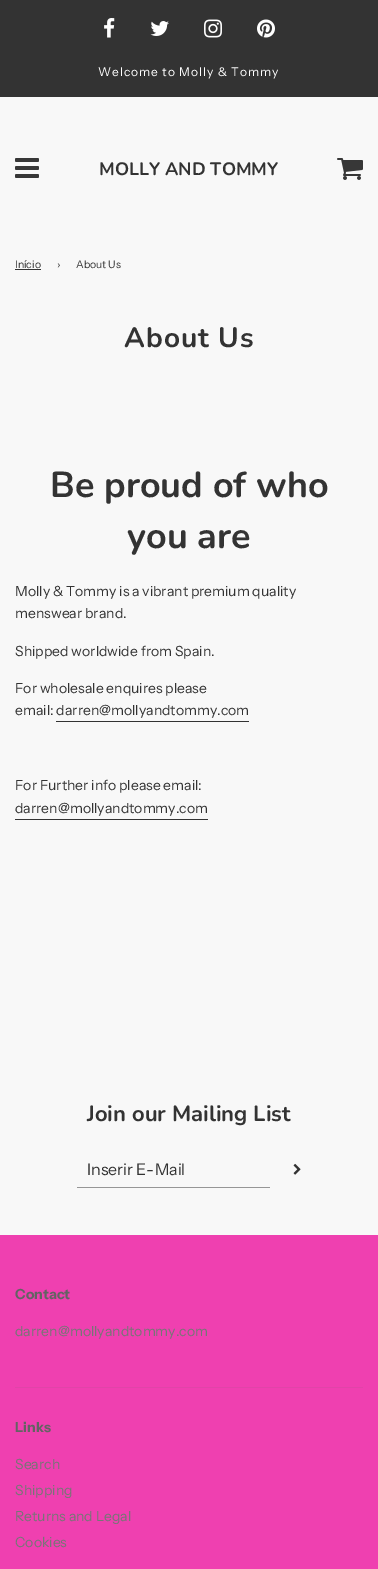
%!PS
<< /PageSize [378 1569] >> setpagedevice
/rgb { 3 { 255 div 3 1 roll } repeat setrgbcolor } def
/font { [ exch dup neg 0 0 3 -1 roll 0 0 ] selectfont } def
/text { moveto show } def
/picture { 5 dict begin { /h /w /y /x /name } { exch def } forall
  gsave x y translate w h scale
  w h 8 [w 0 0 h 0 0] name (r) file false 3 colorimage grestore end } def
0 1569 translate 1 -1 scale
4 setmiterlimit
248 248 248 rgb
0 0 378 1569 rectfill
51 51 51 rgb
0 0 378 97 rectfill
(img_01.rgb) 104 18 11 20 picture
(img_02.rgb) 150 21 19 15 picture
(img_03.rgb) 204 19 18 19 picture
(img_04.rgb) 257 19 18 19 picture
(img_05.rgb) 15 158 24 20 picture
(img_06.rgb) 337 158 26 22 picture
15 269 26 1 rectfill
56 721 193 1 rectfill
15 819 193 1 rectfill
150 150 150 rgb
77 1187 193 1 rectfill
(img_07.rgb) 293 1163 8 12 picture
239 64 176 rgb
0 1235 378 334 rectfill
225 68 168 rgb
15 1387 348 1 rectfill
/InstrumentSans-Regular 12 font
255 255 255 rgb
98 76 moveto 1 0 (Welcome to Molly & Tommy) ashow
/Nunito-Bold 18 font
51 51 51 rgb
(MOLLY AND TOMMY) 99 175 text
/InstrumentSans-Regular 10.5 font
(Início) 15 268 text
(›) 57 268 text
(About Us) 76 268 text
/Nunito-Bold 28 font
124 347 moveto 1 0 (About Us) ashow
/Nunito-Bold 36 font
(Be proud of who) 50 497 text
(you are) 127 548 text
/InstrumentSans-Regular 14 font
(Molly & Tommy is a vibrant premium quality) 15 596 text
(menswear brand.) 15 618 text
(Shipped worldwide from Spain.) 15 656 text
(For wholesale enquires please) 15 693 text
(email: darren@mollyandtommy.com) 15 715 text
(For Further info please email:) 15 790 text
(darren@mollyandtommy.com) 15 813 text
/Nunito-Bold 22 font
(Join our Mailing List) 87 1121 text
/InstrumentSans-Regular 16 font
(Inserir E-Mail) 87 1175 text
/InstrumentSans-Bold 14 font
99 99 99 rgb
(Contact) 15 1299 text
/InstrumentSans-Regular 14 font
118 118 118 rgb
(darren@mollyandtommy.com) 15 1336 text
/InstrumentSans-Bold 14 font
99 99 99 rgb
(Links) 15 1432 text
/InstrumentSans-Regular 14 font
118 118 118 rgb
(Search) 15 1469 text
(Shipping) 15 1495 text
(Returns and Legal) 15 1521 text
(Cookies) 15 1547 text
showpage
